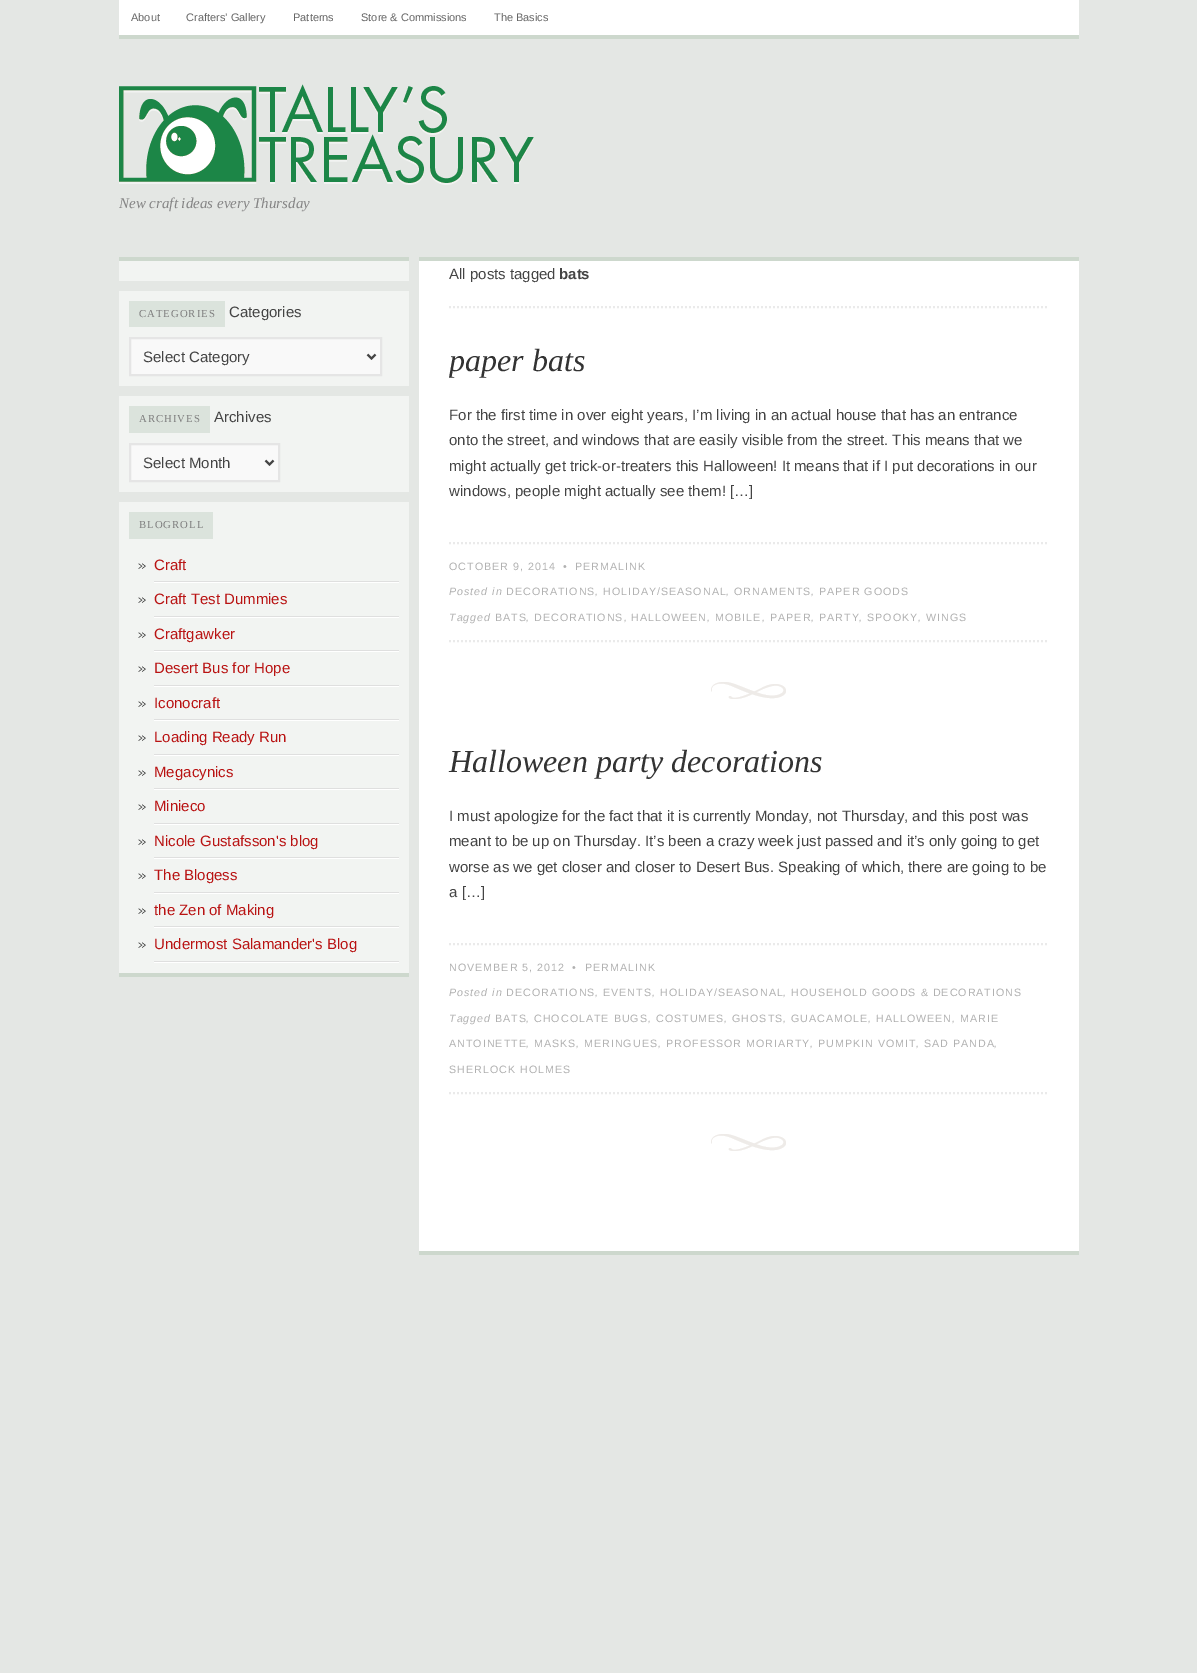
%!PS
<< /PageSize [1197 1673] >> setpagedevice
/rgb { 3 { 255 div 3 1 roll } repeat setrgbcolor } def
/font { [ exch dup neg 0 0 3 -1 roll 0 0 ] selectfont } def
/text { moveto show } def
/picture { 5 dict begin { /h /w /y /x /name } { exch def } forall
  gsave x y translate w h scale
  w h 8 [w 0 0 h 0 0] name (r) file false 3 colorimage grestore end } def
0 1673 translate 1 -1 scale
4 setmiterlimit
228 231 228 rgb
0 0 1197 1673 rectfill
255 255 255 rgb
119 0 960 35 rectfill
205 216 205 rgb
119 35 960 4 rectfill
(img_01.rgb) 119 84 415 101 picture
119 257 290 4 rectfill
119 973 290 4 rectfill
242 244 242 rgb
119 261 290 20 rectfill
119 291 290 95 rectfill
219 227 220 rgb
129 301 96 26 rectfill
249 249 249 rgb
130 338 moveto 251 0 rlineto 0 37 rlineto -251 0 rlineto closepath gsave fill grestore
229 229 229 rgb
2 setlinewidth
stroke
68 68 68 rgb
367.5 354.5 moveto 4 4 rlineto 4 -4 rlineto stroke
242 244 242 rgb
119 396 290 96 rectfill
219 227 220 rgb
129 406 81 27 rectfill
249 249 249 rgb
130 444 moveto 149 0 rlineto 0 37 rlineto -149 0 rlineto closepath gsave fill grestore
229 229 229 rgb
stroke
68 68 68 rgb
265.5 460.5 moveto 4 4 rlineto 4 -4 rlineto stroke
242 244 242 rgb
119 502 290 471 rectfill
219 227 220 rgb
129 512 84 27 rectfill
255 255 255 rgb
154 962 245 1 rectfill
223 223 223 rgb
154 581 245 1 rectfill
(img_02.rgb) 138 563 8 6 picture
255 255 255 rgb
154 582 245 1 rectfill
223 223 223 rgb
154 616 245 1 rectfill
(img_02.rgb) 138 597 8 6 picture
255 255 255 rgb
154 617 245 1 rectfill
223 223 223 rgb
154 650 245 1 rectfill
(img_02.rgb) 138 632 8 6 picture
255 255 255 rgb
154 651 245 1 rectfill
223 223 223 rgb
154 685 245 1 rectfill
(img_02.rgb) 138 666 8 6 picture
255 255 255 rgb
154 686 245 1 rectfill
223 223 223 rgb
154 719 245 1 rectfill
(img_02.rgb) 138 701 8 6 picture
255 255 255 rgb
154 720 245 1 rectfill
223 223 223 rgb
154 754 245 1 rectfill
(img_02.rgb) 138 735 8 6 picture
255 255 255 rgb
154 755 245 1 rectfill
223 223 223 rgb
154 788 245 1 rectfill
(img_02.rgb) 138 770 8 6 picture
255 255 255 rgb
154 789 245 1 rectfill
223 223 223 rgb
154 823 245 1 rectfill
(img_02.rgb) 138 804 8 6 picture
255 255 255 rgb
154 824 245 1 rectfill
223 223 223 rgb
154 857 245 1 rectfill
(img_02.rgb) 138 839 8 6 picture
255 255 255 rgb
154 858 245 1 rectfill
223 223 223 rgb
154 892 245 1 rectfill
(img_02.rgb) 138 873 8 6 picture
255 255 255 rgb
154 893 245 1 rectfill
223 223 223 rgb
154 926 245 1 rectfill
(img_02.rgb) 138 908 8 6 picture
255 255 255 rgb
154 927 245 1 rectfill
223 223 223 rgb
154 961 245 1 rectfill
(img_02.rgb) 138 942 8 6 picture
255 255 255 rgb
419 261 660 990 rectfill
205 216 205 rgb
419 257 660 4 rectfill
419 1251 660 4 rectfill
234 234 234 rgb
[2 2] 0 setdash
449 307 moveto 600 0 rlineto stroke
449 543 moveto 600 0 rlineto stroke
449 641 moveto 600 0 rlineto stroke
(img_03.rgb) 711 682 75 17 picture
449 944 moveto 600 0 rlineto stroke
449 1093 moveto 600 0 rlineto stroke
(img_03.rgb) 711 1134 75 17 picture
/LiberationSans-Regular 11 font
102 102 102 rgb
(About) 131 21 text
(Crafters’ Gallery) 186 21 text
(Patterns) 293 21 text
(Store & Commissions) 361 21 text
(The Basics) 494 21 text
/LiberationSerif-Italic 15 font
133 133 133 rgb
(New craft ideas every Thursday) 119 208 text
/LiberationSerif-Regular 10.7 font
126 126 126 rgb
139 317 moveto 1 0 (CATEGORIES) ashow
/LiberationSans-Regular 15 font
68 68 68 rgb
(Categories) 229 317 text
(Select Category) 143 362 text
/LiberationSerif-Regular 10.7 font
126 126 126 rgb
139 422 moveto 1 0 (ARCHIVES) ashow
/LiberationSans-Regular 15 font
68 68 68 rgb
(Archives) 214 422 text
(Select Month) 143 468 text
/LiberationSerif-Regular 10.7 font
126 126 126 rgb
139 528 moveto 1 0 (BLOGROLL) ashow
/LiberationSans-Regular 15 font
185 19 19 rgb
(Craft) 154 570 text
(Craft Test Dummies) 154 604 text
(Craftgawker) 154 639 text
(Desert Bus for Hope) 154 673 text
(Iconocraft) 154 708 text
(Loading Ready Run) 154 742 text
(Megacynics) 154 777 text
(Minieco) 154 811 text
(Nicole Gustafsson's blog) 154 846 text
(The Blogess) 154 880 text
(the Zen of Making) 154 915 text
(Undermost Salamander's Blog) 154 949 text
68 68 68 rgb
(All posts tagged) 449 279 text
/LiberationSans-Bold 15 font
(bats) 559 279 text
gsave
449 338 600 304 rectclip
/LiberationSerif-Italic 32 font
51 51 51 rgb
(paper bats) 449 371 text
grestore
/LiberationSans-Regular 15 font
(For the first time in over eight years, I’m living in an actual house that has an entrance) 449 420 text
(onto the street, and windows that are easily visible from the street. This means that we) 449 445 text
(might actually get trick-or-treaters this Halloween! It means that if I put decorations in our) 449 471 text
(windows, people might actually see them! […]) 449 496 text
/LiberationSans-Regular 10.7 font
177 177 177 rgb
449 570 moveto 1 0 (OCTOBER 9, 2014) ashow
/LiberationSans-Italic 10.7 font
563 570 moveto 1 0 (•) ashow
/LiberationSans-Regular 10.7 font
575 570 moveto 1 0 (PERMALINK) ashow
/LiberationSans-Italic 10.7 font
449 595 moveto 1 0 (Posted in) ashow
/LiberationSans-Regular 10.7 font
506 595 moveto 1 0 (DECORATIONS) ashow
/LiberationSans-Italic 10.7 font
595 595 moveto 1 0 (,) ashow
/LiberationSans-Regular 10.7 font
603 595 moveto 1 0 (HOLIDAY/SEASONAL) ashow
/LiberationSans-Italic 10.7 font
726 595 moveto 1 0 (,) ashow
/LiberationSans-Regular 10.7 font
734 595 moveto 1 0 (ORNAMENTS) ashow
/LiberationSans-Italic 10.7 font
811 595 moveto 1 0 (,) ashow
/LiberationSans-Regular 10.7 font
819 595 moveto 1 0 (PAPER GOODS) ashow
/LiberationSans-Italic 10.7 font
449 621 moveto 1 0 (Tagged) ashow
/LiberationSans-Regular 10.7 font
495 621 moveto 1 0 (BATS) ashow
/LiberationSans-Italic 10.7 font
526 621 moveto 1 0 (,) ashow
/LiberationSans-Regular 10.7 font
534 621 moveto 1 0 (DECORATIONS) ashow
/LiberationSans-Italic 10.7 font
624 621 moveto 1 0 (,) ashow
/LiberationSans-Regular 10.7 font
631 621 moveto 1 0 (HALLOWEEN) ashow
/LiberationSans-Italic 10.7 font
707 621 moveto 1 0 (,) ashow
/LiberationSans-Regular 10.7 font
715 621 moveto 1 0 (MOBILE) ashow
/LiberationSans-Italic 10.7 font
762 621 moveto 1 0 (,) ashow
/LiberationSans-Regular 10.7 font
770 621 moveto 1 0 (PAPER) ashow
/LiberationSans-Italic 10.7 font
811 621 moveto 1 0 (,) ashow
/LiberationSans-Regular 10.7 font
819 621 moveto 1 0 (PARTY) ashow
/LiberationSans-Italic 10.7 font
859 621 moveto 1 0 (,) ashow
/LiberationSans-Regular 10.7 font
867 621 moveto 1 0 (SPOOKY) ashow
/LiberationSans-Italic 10.7 font
918 621 moveto 1 0 (,) ashow
/LiberationSans-Regular 10.7 font
926 621 moveto 1 0 (WINGS) ashow
/LiberationSerif-Italic 32 font
51 51 51 rgb
(Halloween party decorations) 449 772 text
/LiberationSans-Regular 15 font
68 68 68 rgb
(I must apologize for the fact that it is currently Monday, not Thursday, and this post was) 449 821 text
(meant to be up on Thursday. It’s been a crazy week just passed and it’s only going to get) 449 846 text
(worse as we get closer and closer to Desert Bus. Speaking of which, there are going to be) 449 872 text
(a […]) 449 897 text
/LiberationSans-Regular 10.7 font
177 177 177 rgb
449 971 moveto 1 0 (NOVEMBER 5, 2012) ashow
/LiberationSans-Italic 10.7 font
572 971 moveto 1 0 (•) ashow
/LiberationSans-Regular 10.7 font
585 971 moveto 1 0 (PERMALINK) ashow
/LiberationSans-Italic 10.7 font
449 996 moveto 1 0 (Posted in) ashow
/LiberationSans-Regular 10.7 font
506 996 moveto 1 0 (DECORATIONS) ashow
/LiberationSans-Italic 10.7 font
595 996 moveto 1 0 (,) ashow
/LiberationSans-Regular 10.7 font
603 996 moveto 1 0 (EVENTS) ashow
/LiberationSans-Italic 10.7 font
652 996 moveto 1 0 (,) ashow
/LiberationSans-Regular 10.7 font
660 996 moveto 1 0 (HOLIDAY/SEASONAL) ashow
/LiberationSans-Italic 10.7 font
783 996 moveto 1 0 (,) ashow
/LiberationSans-Regular 10.7 font
791 996 moveto 1 0 (HOUSEHOLD GOODS & DECORATIONS) ashow
/LiberationSans-Italic 10.7 font
449 1022 moveto 1 0 (Tagged) ashow
/LiberationSans-Regular 10.7 font
495 1022 moveto 1 0 (BATS) ashow
/LiberationSans-Italic 10.7 font
526 1022 moveto 1 0 (,) ashow
/LiberationSans-Regular 10.7 font
534 1022 moveto 1 0 (CHOCOLATE BUGS) ashow
/LiberationSans-Italic 10.7 font
648 1022 moveto 1 0 (,) ashow
/LiberationSans-Regular 10.7 font
656 1022 moveto 1 0 (COSTUMES) ashow
/LiberationSans-Italic 10.7 font
724 1022 moveto 1 0 (,) ashow
/LiberationSans-Regular 10.7 font
732 1022 moveto 1 0 (GHOSTS) ashow
/LiberationSans-Italic 10.7 font
783 1022 moveto 1 0 (,) ashow
/LiberationSans-Regular 10.7 font
791 1022 moveto 1 0 (GUACAMOLE) ashow
/LiberationSans-Italic 10.7 font
868 1022 moveto 1 0 (,) ashow
/LiberationSans-Regular 10.7 font
876 1022 moveto 1 0 (HALLOWEEN) ashow
/LiberationSans-Italic 10.7 font
952 1022 moveto 1 0 (,) ashow
/LiberationSans-Regular 10.7 font
960 1022 moveto 1 0 (MARIE) ashow
449 1047 moveto 1 0 (ANTOINETTE) ashow
/LiberationSans-Italic 10.7 font
526 1047 moveto 1 0 (,) ashow
/LiberationSans-Regular 10.7 font
534 1047 moveto 1 0 (MASKS) ashow
/LiberationSans-Italic 10.7 font
576 1047 moveto 1 0 (,) ashow
/LiberationSans-Regular 10.7 font
584 1047 moveto 1 0 (MERINGUES) ashow
/LiberationSans-Italic 10.7 font
658 1047 moveto 1 0 (,) ashow
/LiberationSans-Regular 10.7 font
666 1047 moveto 1 0 (PROFESSOR MORIARTY) ashow
/LiberationSans-Italic 10.7 font
810 1047 moveto 1 0 (,) ashow
/LiberationSans-Regular 10.7 font
818 1047 moveto 1 0 (PUMPKIN VOMIT) ashow
/LiberationSans-Italic 10.7 font
916 1047 moveto 1 0 (,) ashow
/LiberationSans-Regular 10.7 font
924 1047 moveto 1 0 (SAD PANDA) ashow
/LiberationSans-Italic 10.7 font
994 1047 moveto 1 0 (,) ashow
/LiberationSans-Regular 10.7 font
449 1073 moveto 1 0 (SHERLOCK HOLMES) ashow
showpage
